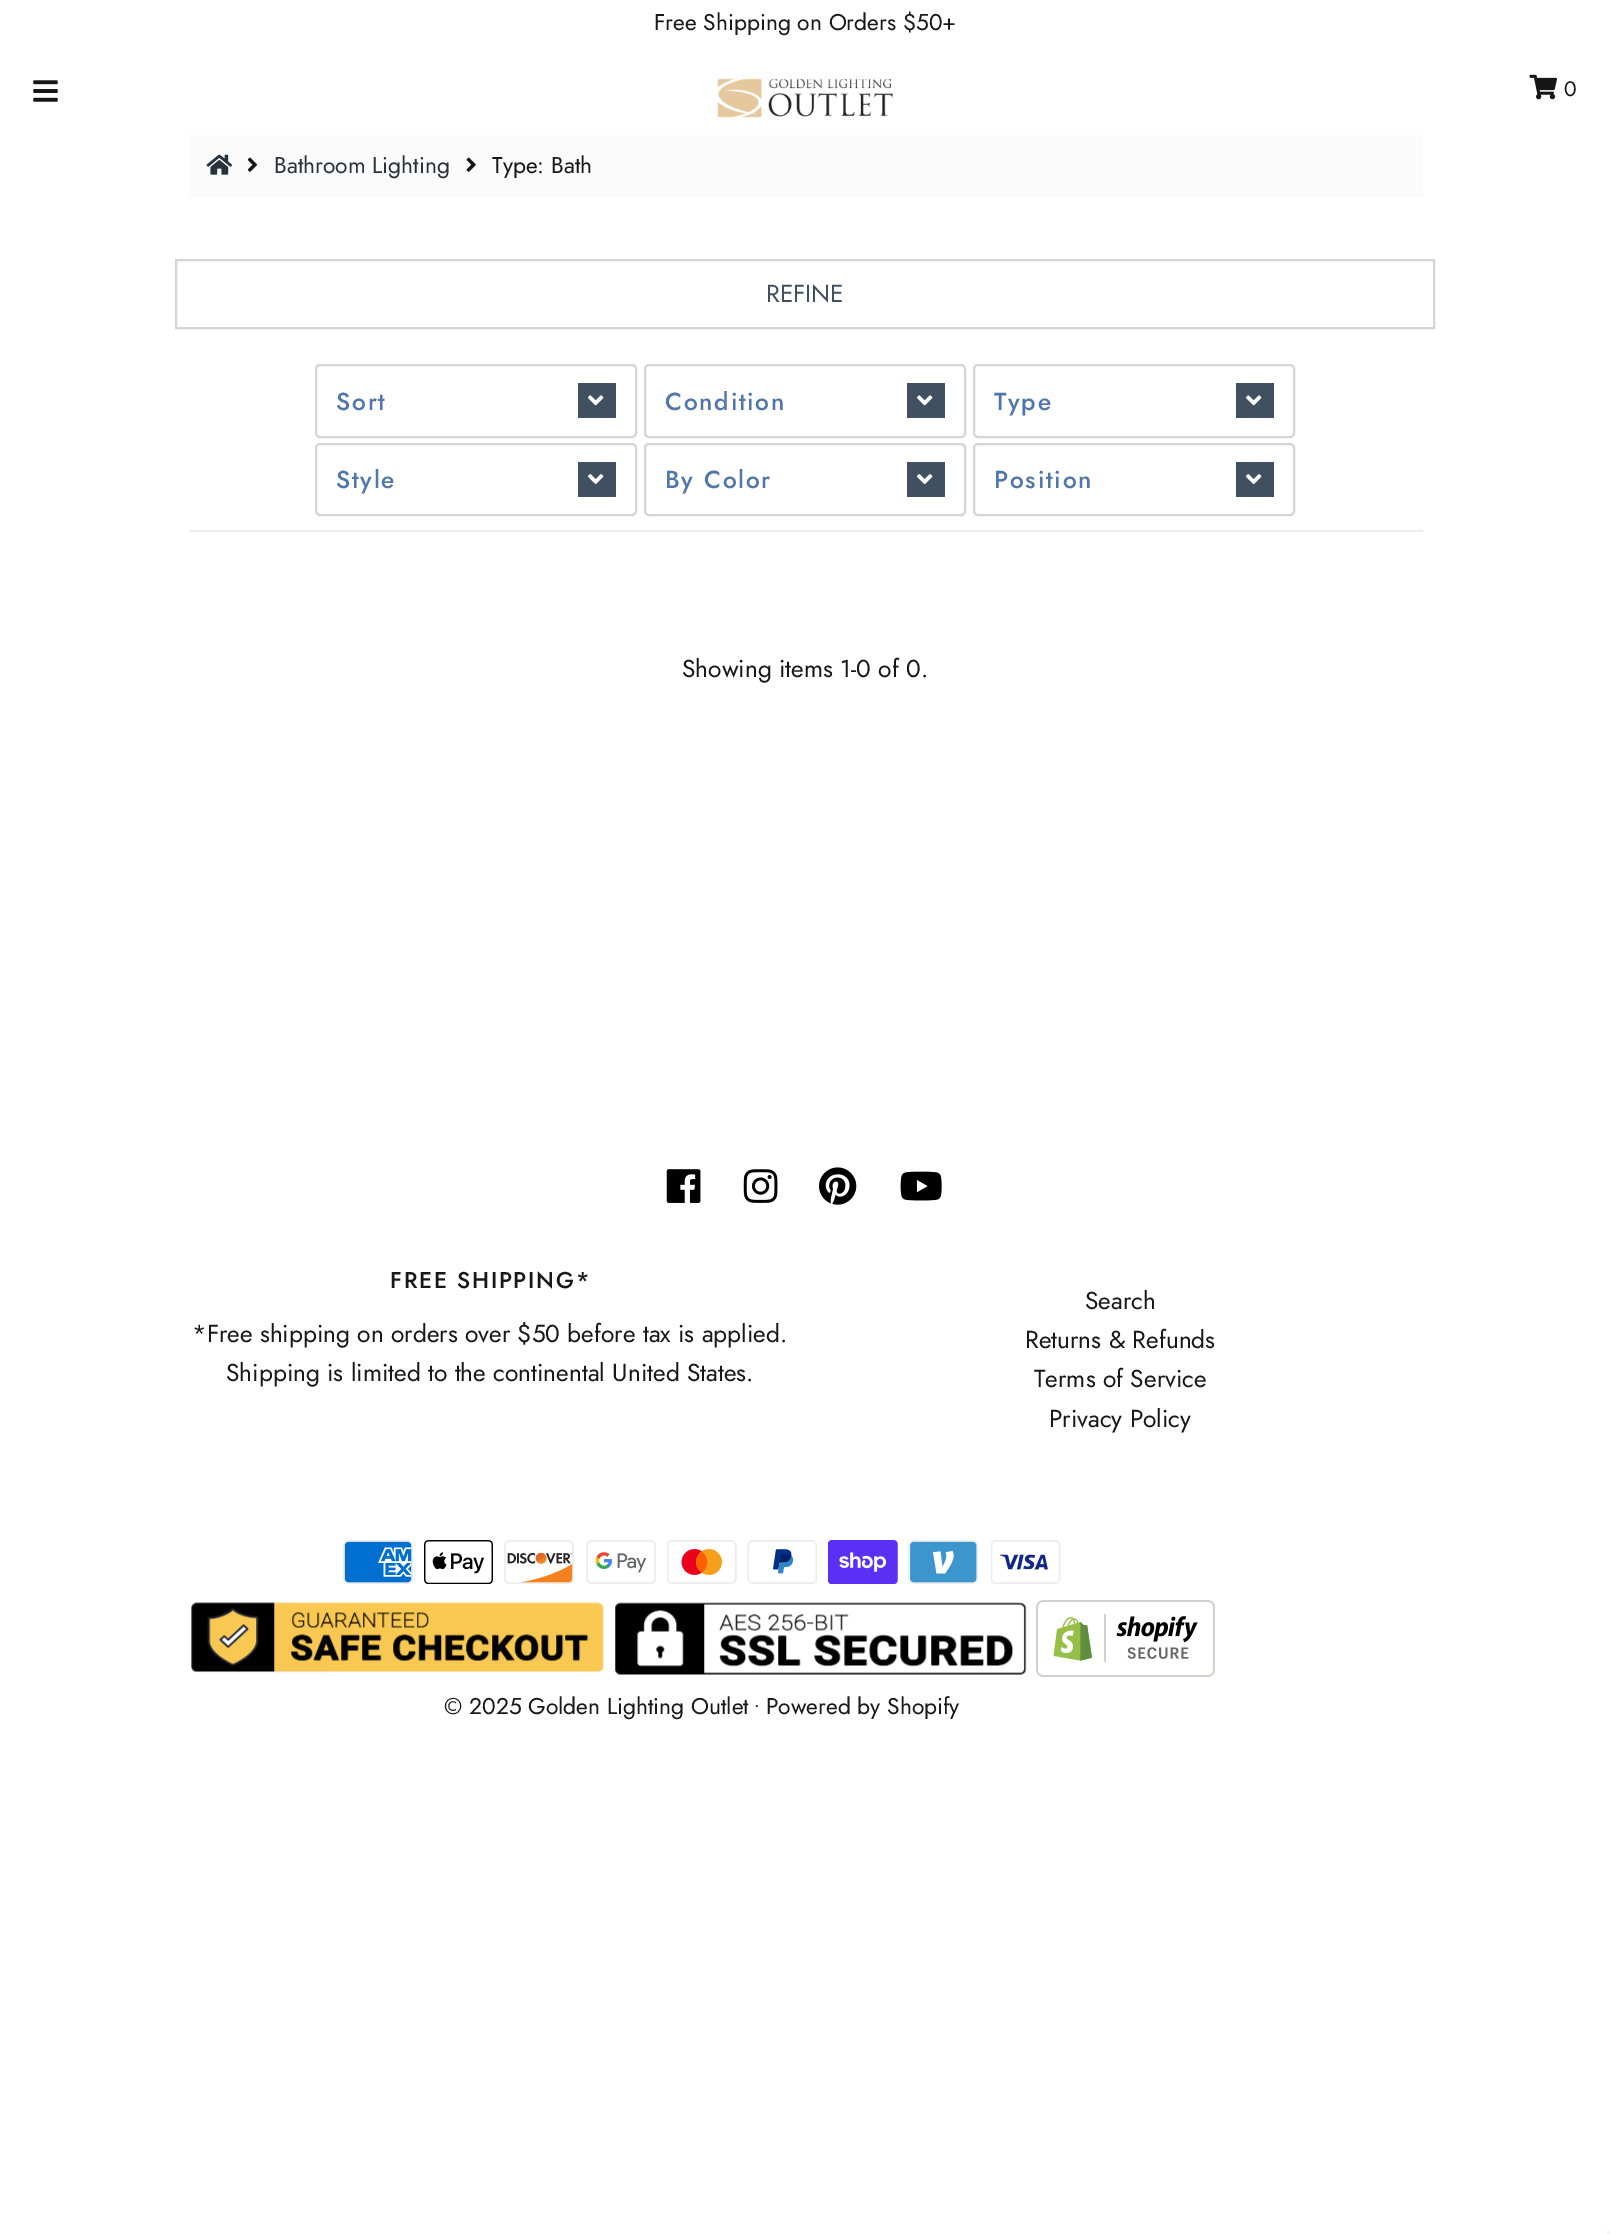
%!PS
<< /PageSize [1610 2234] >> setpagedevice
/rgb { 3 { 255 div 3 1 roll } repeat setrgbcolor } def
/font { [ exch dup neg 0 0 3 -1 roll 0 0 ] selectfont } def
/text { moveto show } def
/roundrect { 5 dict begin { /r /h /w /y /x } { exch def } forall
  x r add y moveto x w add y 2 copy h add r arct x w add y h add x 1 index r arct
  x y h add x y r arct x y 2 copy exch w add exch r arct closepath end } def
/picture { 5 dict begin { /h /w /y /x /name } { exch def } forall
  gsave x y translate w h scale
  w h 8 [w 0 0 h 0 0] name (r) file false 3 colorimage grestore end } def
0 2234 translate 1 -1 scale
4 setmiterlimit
255 255 255 rgb
0 0 1610 2234 rectfill
(img_01.rgb) 33 80 25 22 picture
(img_02.rgb) 717 78 176 40 picture
(img_03.rgb) 1529 74 28 26 picture
251 251 251 rgb
189 135 1234 63 rectfill
(img_04.rgb) 206 154 26 21 picture
(img_05.rgb) 247 157 10 15 picture
(img_06.rgb) 466 157 10 15 picture
213 213 213 rgb
2 setlinewidth
176 260 1258 68 rectstroke
238 238 238 rgb
189 530 1234 2 rectfill
213 213 213 rgb
316 365 320 72 4 roundrect stroke
65 80 96 rgb
578 383 38 35 rectfill
(img_07.rgb) 588 395 16 11 picture
213 213 213 rgb
645 365 320 72 4 roundrect stroke
65 80 96 rgb
907 383 38 35 rectfill
(img_07.rgb) 917 395 16 11 picture
213 213 213 rgb
974 365 320 72 4 roundrect stroke
65 80 96 rgb
1236 383 38 35 rectfill
(img_07.rgb) 1246 395 16 11 picture
213 213 213 rgb
316 444 320 71 4 roundrect stroke
65 80 96 rgb
578 462 38 35 rectfill
(img_08.rgb) 588 474 16 10 picture
213 213 213 rgb
645 444 320 71 4 roundrect stroke
65 80 96 rgb
907 462 38 35 rectfill
(img_08.rgb) 917 474 16 10 picture
213 213 213 rgb
974 444 320 71 4 roundrect stroke
65 80 96 rgb
1236 462 38 35 rectfill
(img_08.rgb) 1246 474 16 10 picture
(img_09.rgb) 666 1169 35 34 picture
(img_10.rgb) 743 1169 35 34 picture
(img_11.rgb) 819 1167 38 38 picture
(img_12.rgb) 900 1171 42 30 picture
(img_13.rgb) 343 1540 70 44 picture
(img_14.rgb) 424 1540 69 44 picture
(img_15.rgb) 504 1540 70 44 picture
(img_16.rgb) 586 1540 70 44 picture
(img_17.rgb) 667 1540 70 44 picture
(img_18.rgb) 747 1540 70 44 picture
(img_19.rgb) 828 1540 70 44 picture
(img_20.rgb) 908 1540 70 44 picture
(img_21.rgb) 991 1540 70 44 picture
(img_22.rgb) 191 1602 414 71 picture
(img_23.rgb) 615 1602 412 73 picture
(img_24.rgb) 1036 1600 179 77 picture
245 245 245 rgb
1607 2231 3 3 rectfill
/Jost-Regular 22.75 font
24 24 24 rgb
(Free Shipping on Orders $50+) 654 30 text
/Jost-Regular 21 font
(0) 1564 96 text
/Jost-Regular 22.75 font
40 50 60 rgb
(Bathroom Lighting) 274 173 text
24 24 24 rgb
(Type: Bath) 492 173 text
/Jost-Regular 24.5 font
65 80 96 rgb
(REFINE) 766 302 text
/Jost-Medium 24.5 font
80 118 172 rgb
336 410 moveto 1.75 0 (Sort) ashow
665 410 moveto 1.75 0 (Condition) ashow
994 410 moveto 1.75 0 (Type) ashow
336 488 moveto 1.75 0 (Style) ashow
665 488 moveto 1.75 0 (By Color) ashow
994 488 moveto 1.75 0 (Position) ashow
/Jost-Regular 24.5 font
24 24 24 rgb
(Showing items 1-0 of 0.) 682 677 text
/Jost-Medium 22.75 font
390 1288 moveto 1.75 0 (FREE SHIPPING*) ashow
/Jost-Regular 24.5 font
(*Free shipping on orders over $50 before tax is applied.) 192 1342 text
(Shipping is limited to the continental United States.) 226 1381 text
(Search) 1085 1309 text
(Returns & Refunds) 1025 1348 text
(Terms of Service) 1034 1387 text
(Privacy Policy) 1049 1427 text
/Jost-Regular 22.75 font
(© 2025 Golden Lighting Outlet) 444 1714 text
/Jost-Regular 19 font
(•) 754 1714 text
/Jost-Regular 22.75 font
(Powered by Shopify) 766 1714 text
showpage
